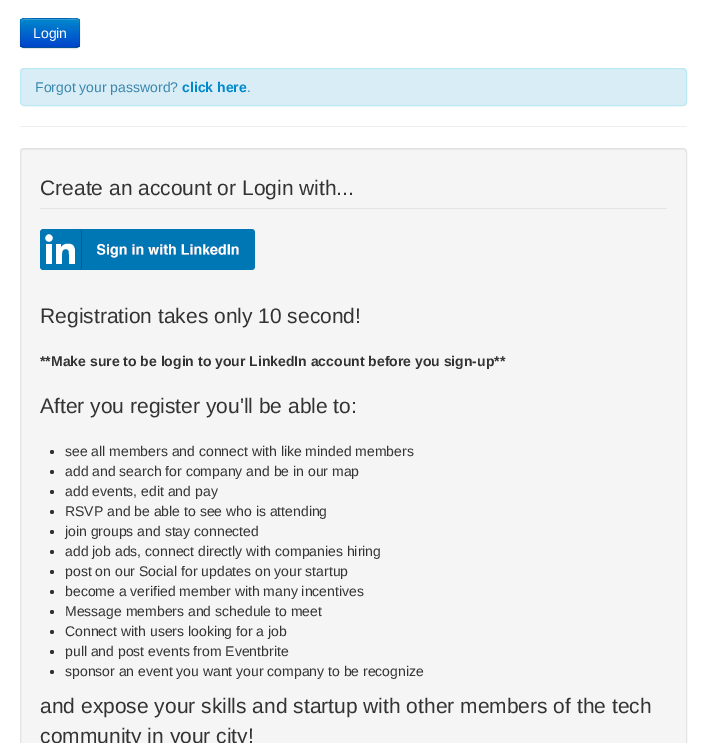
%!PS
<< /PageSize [707 743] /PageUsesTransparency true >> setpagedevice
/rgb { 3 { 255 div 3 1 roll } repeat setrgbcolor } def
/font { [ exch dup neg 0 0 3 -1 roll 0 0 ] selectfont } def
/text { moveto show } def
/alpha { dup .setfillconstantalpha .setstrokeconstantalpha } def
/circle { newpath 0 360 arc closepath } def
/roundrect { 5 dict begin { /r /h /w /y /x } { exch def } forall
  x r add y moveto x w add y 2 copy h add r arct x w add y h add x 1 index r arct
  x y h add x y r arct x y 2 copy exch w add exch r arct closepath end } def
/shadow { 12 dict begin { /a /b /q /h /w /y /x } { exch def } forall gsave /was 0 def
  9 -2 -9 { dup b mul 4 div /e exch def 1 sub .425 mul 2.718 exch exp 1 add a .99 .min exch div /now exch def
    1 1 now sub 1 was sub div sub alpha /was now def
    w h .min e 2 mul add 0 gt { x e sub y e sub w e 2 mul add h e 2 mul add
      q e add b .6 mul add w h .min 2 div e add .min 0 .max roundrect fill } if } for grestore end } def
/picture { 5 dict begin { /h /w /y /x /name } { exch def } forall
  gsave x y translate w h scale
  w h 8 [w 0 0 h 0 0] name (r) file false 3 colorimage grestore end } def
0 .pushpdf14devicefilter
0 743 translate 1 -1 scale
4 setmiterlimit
255 255 255 rgb
0 0 707 743 rectfill
0 0 0 rgb
20 19 60 30 4 1 0.05 shadow
0 109 204 rgb
20 18 60 30 4 roundrect fill
gsave
20 18 60 30 4 roundrect clip newpath
gsave 20 19 moveto 60 0 rlineto 0 28 rlineto -60 0 rlineto closepath clip newpath
<< /ShadingType 2 /ColorSpace /DeviceRGB /Coords [50 19 50 47] /Extend [true true] /Function << /FunctionType 2 /Domain [0 1] /C0 [0 0.533 0.8] /C1 [0 0.267 0.8] /N 1 >> >> shfill grestore
grestore
51 159 214 rgb
24 20 moveto 52 0 rlineto 2 0 3 1 3 3 rcurveto 0 -6 -7 -4 -12 -4 rcurveto -34 0 rlineto -5 0 -12 -2 -12 4 rcurveto 0 -2 1 -3 3 -3 rcurveto closepath fill
0.25 alpha
0 0 0 rgb
78.5 46.5 moveto -2 1 rlineto -53 0 rlineto -2 -1 rlineto stroke
0.1 alpha
21.5 46.5 moveto -2 -2 -1 -10.5 -1 -13.5 rcurveto 0 -15 -2.5 -14.5 12 -14.5 rcurveto 35 0 rlineto 14.5 0 12 -0.5 12 14.5 rcurveto 0 3 1 11.5 -1 13.5 rcurveto stroke
1 alpha
217 237 247 rgb
20.5 68.5 666 37 3.5 roundrect gsave fill grestore
188 232 241 rgb
stroke
238 238 238 rgb
20 126 667 1 rectfill
245 245 245 rgb
20 148 667 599 4 roundrect fill
233 233 233 rgb
24 150 moveto 659 0 rlineto 2 0 3 1 3 3 rcurveto 0 -1 rlineto 0 -2 -1 -3 -3 -3 rcurveto -659 0 rlineto -2 0 -3 1 -3 3 rcurveto 0 1 rlineto 0 -2 1 -3 3 -3 rcurveto closepath fill
227 227 227 rgb
20.5 148.5 666 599 3.5 roundrect stroke
229 229 229 rgb
40 208 627 1 rectfill
(img_01.rgb) 40 229 215 41 picture
51 51 51 rgb
52 452 2 circle fill
52 472 2 circle fill
52 492 2 circle fill
52 512 2 circle fill
52 532 2 circle fill
52 552 2 circle fill
52 572 2 circle fill
52 592 2 circle fill
52 612 2 circle fill
52 632 2 circle fill
52 652 2 circle fill
52 672 2 circle fill
/LiberationSans-Regular 14 font
255 255 255 rgb
(Login) 33 38 text
58 135 173 rgb
(Forgot your password?) 35 92 text
/LiberationSans-Bold 14 font
0 136 204 rgb
(click here) 182 92 text
/LiberationSans-Regular 14 font
58 135 173 rgb
(.) 247 92 text
/LiberationSans-Regular 21 font
51 51 51 rgb
(Create an account or Login with...) 40 195 text
(Registration takes only 10 second!) 40 323 text
/LiberationSans-Bold 14 font
(**Make sure to be login to your LinkedIn account before you sign-up**) 40 366 text
/LiberationSans-Regular 21 font
(After you register you'll be able to:) 40 413 text
/LiberationSans-Regular 14 font
(see all members and connect with like minded members) 65 456 text
(add and search for company and be in our map) 65 476 text
(add events, edit and pay) 65 496 text
(RSVP and be able to see who is attending) 65 516 text
(join groups and stay connected) 65 536 text
(add job ads, connect directly with companies hiring) 65 556 text
(post on our Social for updates on your startup) 65 576 text
(become a verified member with many incentives) 65 596 text
(Message members and schedule to meet) 65 616 text
(Connect with users looking for a job) 65 636 text
(pull and post events from Eventbrite) 65 656 text
(sponsor an event you want your company to be recognize) 65 676 text
/LiberationSans-Regular 21 font
(and expose your skills and startup with other members of the tech) 40 713 text
(community in your city!) 40 743 text
.poppdf14devicefilter showpage
